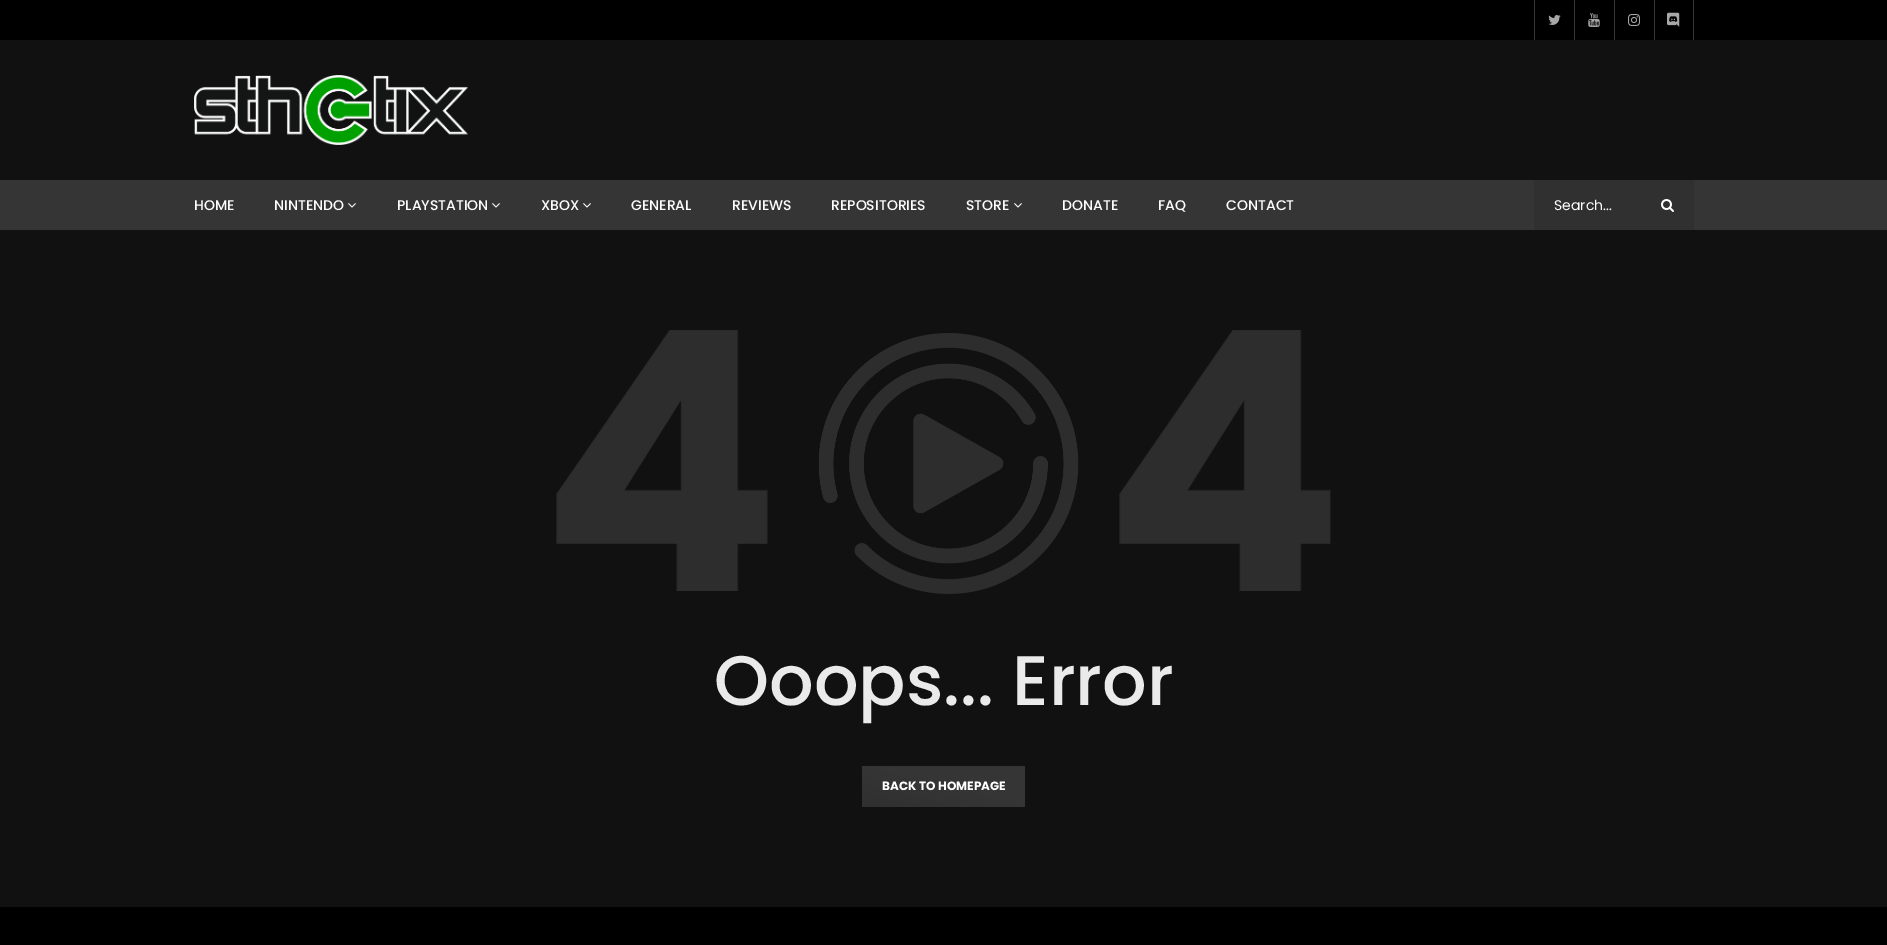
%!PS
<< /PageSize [1887 945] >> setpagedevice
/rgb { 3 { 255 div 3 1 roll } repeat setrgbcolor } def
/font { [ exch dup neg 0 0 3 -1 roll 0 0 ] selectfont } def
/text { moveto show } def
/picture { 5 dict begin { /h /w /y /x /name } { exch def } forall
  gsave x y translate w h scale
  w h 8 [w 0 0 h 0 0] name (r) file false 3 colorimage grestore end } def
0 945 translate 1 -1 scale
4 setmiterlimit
17 17 17 rgb
0 0 1887 945 rectfill
0 0 0 rgb
0 0 1887 40 rectfill
51 51 51 rgb
1534 0 1 40 rectfill
(img_01.rgb) 1548 15 13 10 picture
1574 0 1 40 rectfill
(img_02.rgb) 1588 13 12 14 picture
1614 0 1 40 rectfill
(img_03.rgb) 1628 14 12 12 picture
1693 0 1 40 rectfill
1654 0 1 40 rectfill
(img_04.rgb) 1667 12 13 15 picture
(img_05.rgb) 194 75 274 70 picture
53 53 53 rgb
0 180 1887 50 rectfill
(img_06.rgb) 348 203 8 5 picture
(img_06.rgb) 492 203 8 5 picture
(img_06.rgb) 583 203 8 5 picture
(img_06.rgb) 1014 203 8 5 picture
48 48 48 rgb
1534 180 160 50 rectfill
(img_07.rgb) 1661 199 13 13 picture
(img_08.rgb) 556 330 775 264 picture
gsave 862 766 moveto 163 0 rlineto 0 41 rlineto -163 0 rlineto closepath clip newpath
<< /ShadingType 2 /ColorSpace /DeviceRGB /Coords [953 748 934 825] /Extend [true true] /Function << /FunctionType 3 /Domain [0 1] /Functions [<< /FunctionType 2 /Domain [0 1] /C0 [0.208 0.208 0.208] /C1 [0.208 0.208 0.208] /N 1 >> << /FunctionType 2 /Domain [0 1] /C0 [0.188 0.188 0.188] /C1 [0.188 0.188 0.188] /N 1 >>] /Bounds [0.5] /Encode [0 1 0 1] >> >> shfill grestore
0 0 0 rgb
0 907 1887 38 rectfill
/Poppins-Medium 14 font
255 255 255 rgb
(HOME) 194 210 text
(NINTENDO) 274 210 text
(PLAYSTATION) 397 210 text
(XBOX) 541 210 text
(GENERAL) 631 210 text
(REVIEWS) 732 210 text
(REPOSITORIES) 831 210 text
(STORE) 966 210 text
(DONATE) 1062 210 text
(FAQ) 1158 210 text
(CONTACT) 1226 210 text
/Poppins-Regular 14 font
(Search...) 1554 210 text
/Poppins-Medium 70 font
234 234 234 rgb
(Ooops... Error) 714 705 text
/Poppins-Bold 12 font
255 255 255 rgb
(BACK TO HOMEPAGE) 882 790 text
showpage
